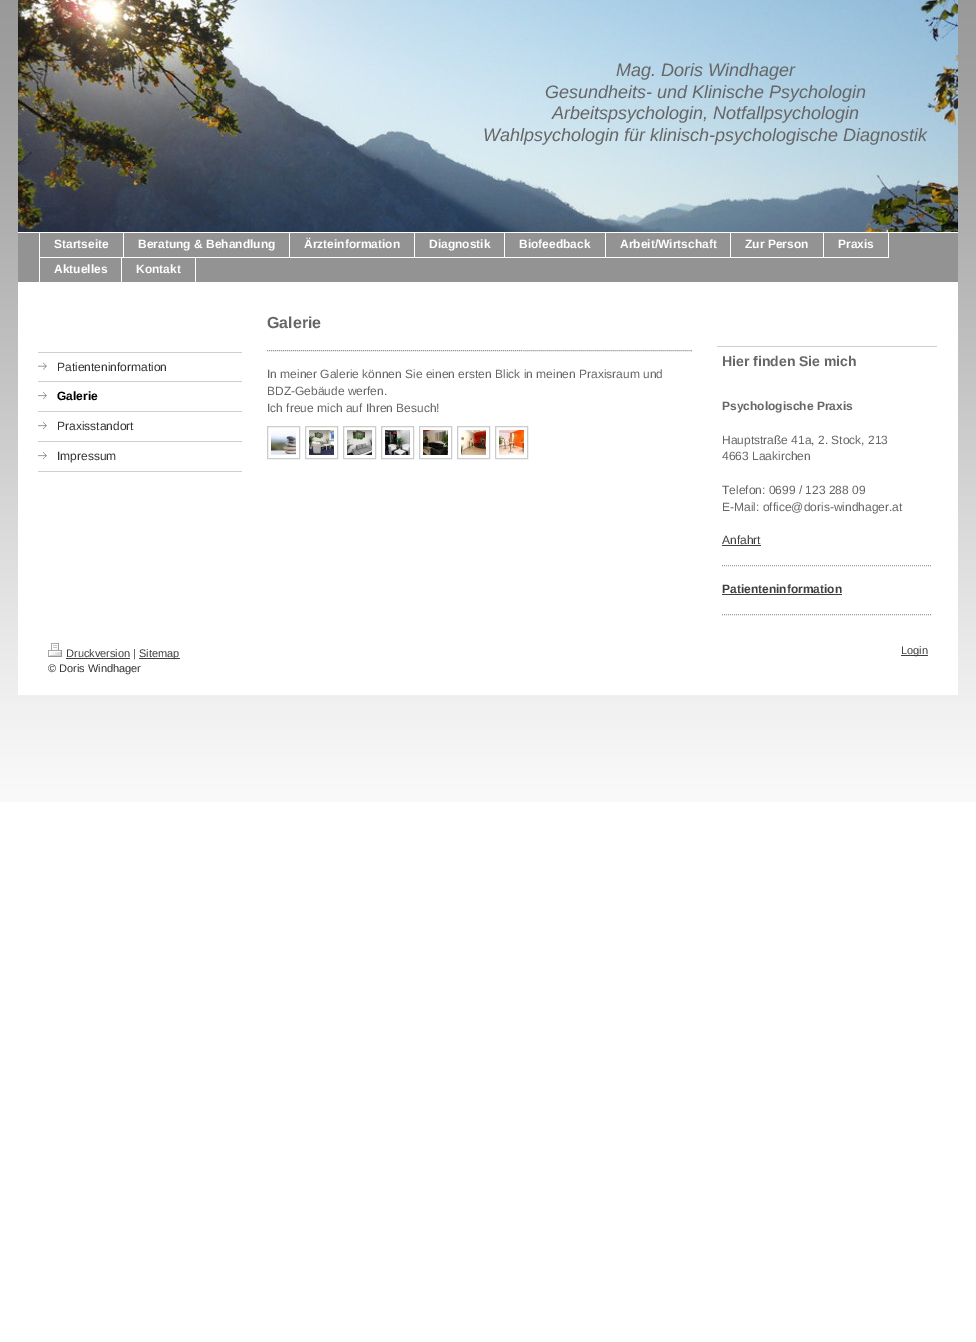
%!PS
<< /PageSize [976 1342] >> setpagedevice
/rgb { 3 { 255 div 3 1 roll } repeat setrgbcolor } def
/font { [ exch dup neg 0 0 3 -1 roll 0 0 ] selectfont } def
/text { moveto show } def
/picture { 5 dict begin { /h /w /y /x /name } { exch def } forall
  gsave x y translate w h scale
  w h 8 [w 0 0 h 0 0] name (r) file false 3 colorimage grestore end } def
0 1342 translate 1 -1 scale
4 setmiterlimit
255 255 255 rgb
0 0 976 1342 rectfill
(img_01.rgb) 0 0 976 802 picture
18 232 940 463 rectfill
(img_02.rgb) 18 0 940 232 picture
147 147 147 rgb
18 233 940 49 rectfill
255 255 255 rgb
39 232 1 50 rectfill
123 232 1 26 rectfill
289 232 1 26 rectfill
196 257 94 1 rectfill
414 232 1 26 rectfill
290 257 125 1 rectfill
504 232 1 26 rectfill
415 257 90 1 rectfill
605 232 1 26 rectfill
505 257 101 1 rectfill
730 232 1 26 rectfill
606 257 125 1 rectfill
823 232 1 26 rectfill
731 257 93 1 rectfill
888 232 1 26 rectfill
824 257 65 1 rectfill
40 257 156 1 rectfill
121 257 1 26 rectfill
195 257 1 26 rectfill
202 209 213 rgb
38 352 204 1 rectfill
(img_03.rgb) 38 362 9 8 picture
38 381 204 1 rectfill
(img_04.rgb) 38 392 9 8 picture
38 411 204 1 rectfill
(img_04.rgb) 38 422 9 8 picture
38 441 204 1 rectfill
(img_04.rgb) 38 452 9 8 picture
38 471 204 1 rectfill
153 153 153 rgb
[1 1] 0 setdash
267 350.5 moveto 425 0 rlineto stroke
204 204 204 rgb
[] 0 setdash
267.5 426.5 32 32 rectstroke
(img_05.rgb) 271 430 25 25 picture
305.5 426.5 32 32 rectstroke
(img_06.rgb) 309 430 25 25 picture
343.5 426.5 32 32 rectstroke
(img_07.rgb) 347 430 25 25 picture
381.5 426.5 32 32 rectstroke
(img_08.rgb) 385 430 25 25 picture
419.5 426.5 32 32 rectstroke
(img_09.rgb) 423 430 25 25 picture
457.5 426.5 32 32 rectstroke
(img_10.rgb) 461 430 25 25 picture
495.5 426.5 32 32 rectstroke
(img_11.rgb) 499 430 25 25 picture
202 209 213 rgb
717 346 220 1 rectfill
64 64 64 rgb
722 545 39 1 rectfill
153 153 153 rgb
[1 1] 0 setdash
722 565.5 moveto 210 0 rlineto stroke
64 64 64 rgb
722 594 120 1 rectfill
153 153 153 rgb
722 614.5 moveto 210 0 rlineto stroke
(img_12.rgb) 48 643 14 14 picture
64 64 64 rgb
66 658 64 1 rectfill
139 658 41 1 rectfill
901 655 27 1 rectfill
/LiberationSans-Italic 18 font
102 102 102 rgb
(Mag. Doris Windhager) 616 76 text
(Gesundheits- und Klinische Psychologin) 545 98 text
(Arbeitspsychologin, Notfallpsychologin) 552 119 text
(Wahlpsychologin für klinisch-psychologische Diagnostik) 483 141 text
/LiberationSans-Bold 12 font
255 255 255 rgb
(Startseite) 54 248 text
(Beratung & Behandlung) 138 248 text
(Ärzteinformation) 304 248 text
(Diagnostik) 429 248 text
(Biofeedback) 519 248 text
(Arbeit/Wirtschaft) 620 248 text
(Zur Person) 745 248 text
(Praxis) 838 248 text
(Aktuelles) 54 273 text
(Kontakt) 136 273 text
/LiberationSans-Regular 12 font
51 51 51 rgb
(Patienteninformation) 57 371 text
/LiberationSans-Bold 12 font
1 1 1 rgb
(Galerie) 57 400 text
/LiberationSans-Regular 12 font
51 51 51 rgb
(Praxisstandort) 57 430 text
(Impressum) 57 460 text
/LiberationSans-Bold 16 font
102 102 102 rgb
(Galerie) 267 328 text
/LiberationSans-Regular 12 font
(In meiner Galerie können Sie einen ersten Blick in meinen Praxisraum und) 267 378 text
(BDZ-Gebäude werfen.) 267 395 text
(Ich freue mich auf Ihren Besuch!) 267 412 text
/LiberationSans-Bold 14 font
(Hier finden Sie mich) 722 366 text
/LiberationSans-Bold 12 font
(Psychologische Praxis) 722 410 text
/LiberationSans-Regular 12 font
(Hauptstraße 41a, 2. Stock, 213) 722 444 text
(4663 Laakirchen) 722 460 text
(Telefon: 0699 / 123 288 09) 722 494 text
(E-Mail: office@doris-windhager.at) 722 511 text
64 64 64 rgb
(Anfahrt) 722 544 text
/LiberationSans-Bold 12 font
(Patienteninformation) 722 593 text
/LiberationSans-Regular 11 font
(Druckversion) 66 657 text
51 51 51 rgb
(|) 133 657 text
64 64 64 rgb
(Sitemap) 139 657 text
51 51 51 rgb
(© Doris Windhager) 48 672 text
64 64 64 rgb
(Login) 901 654 text
showpage
